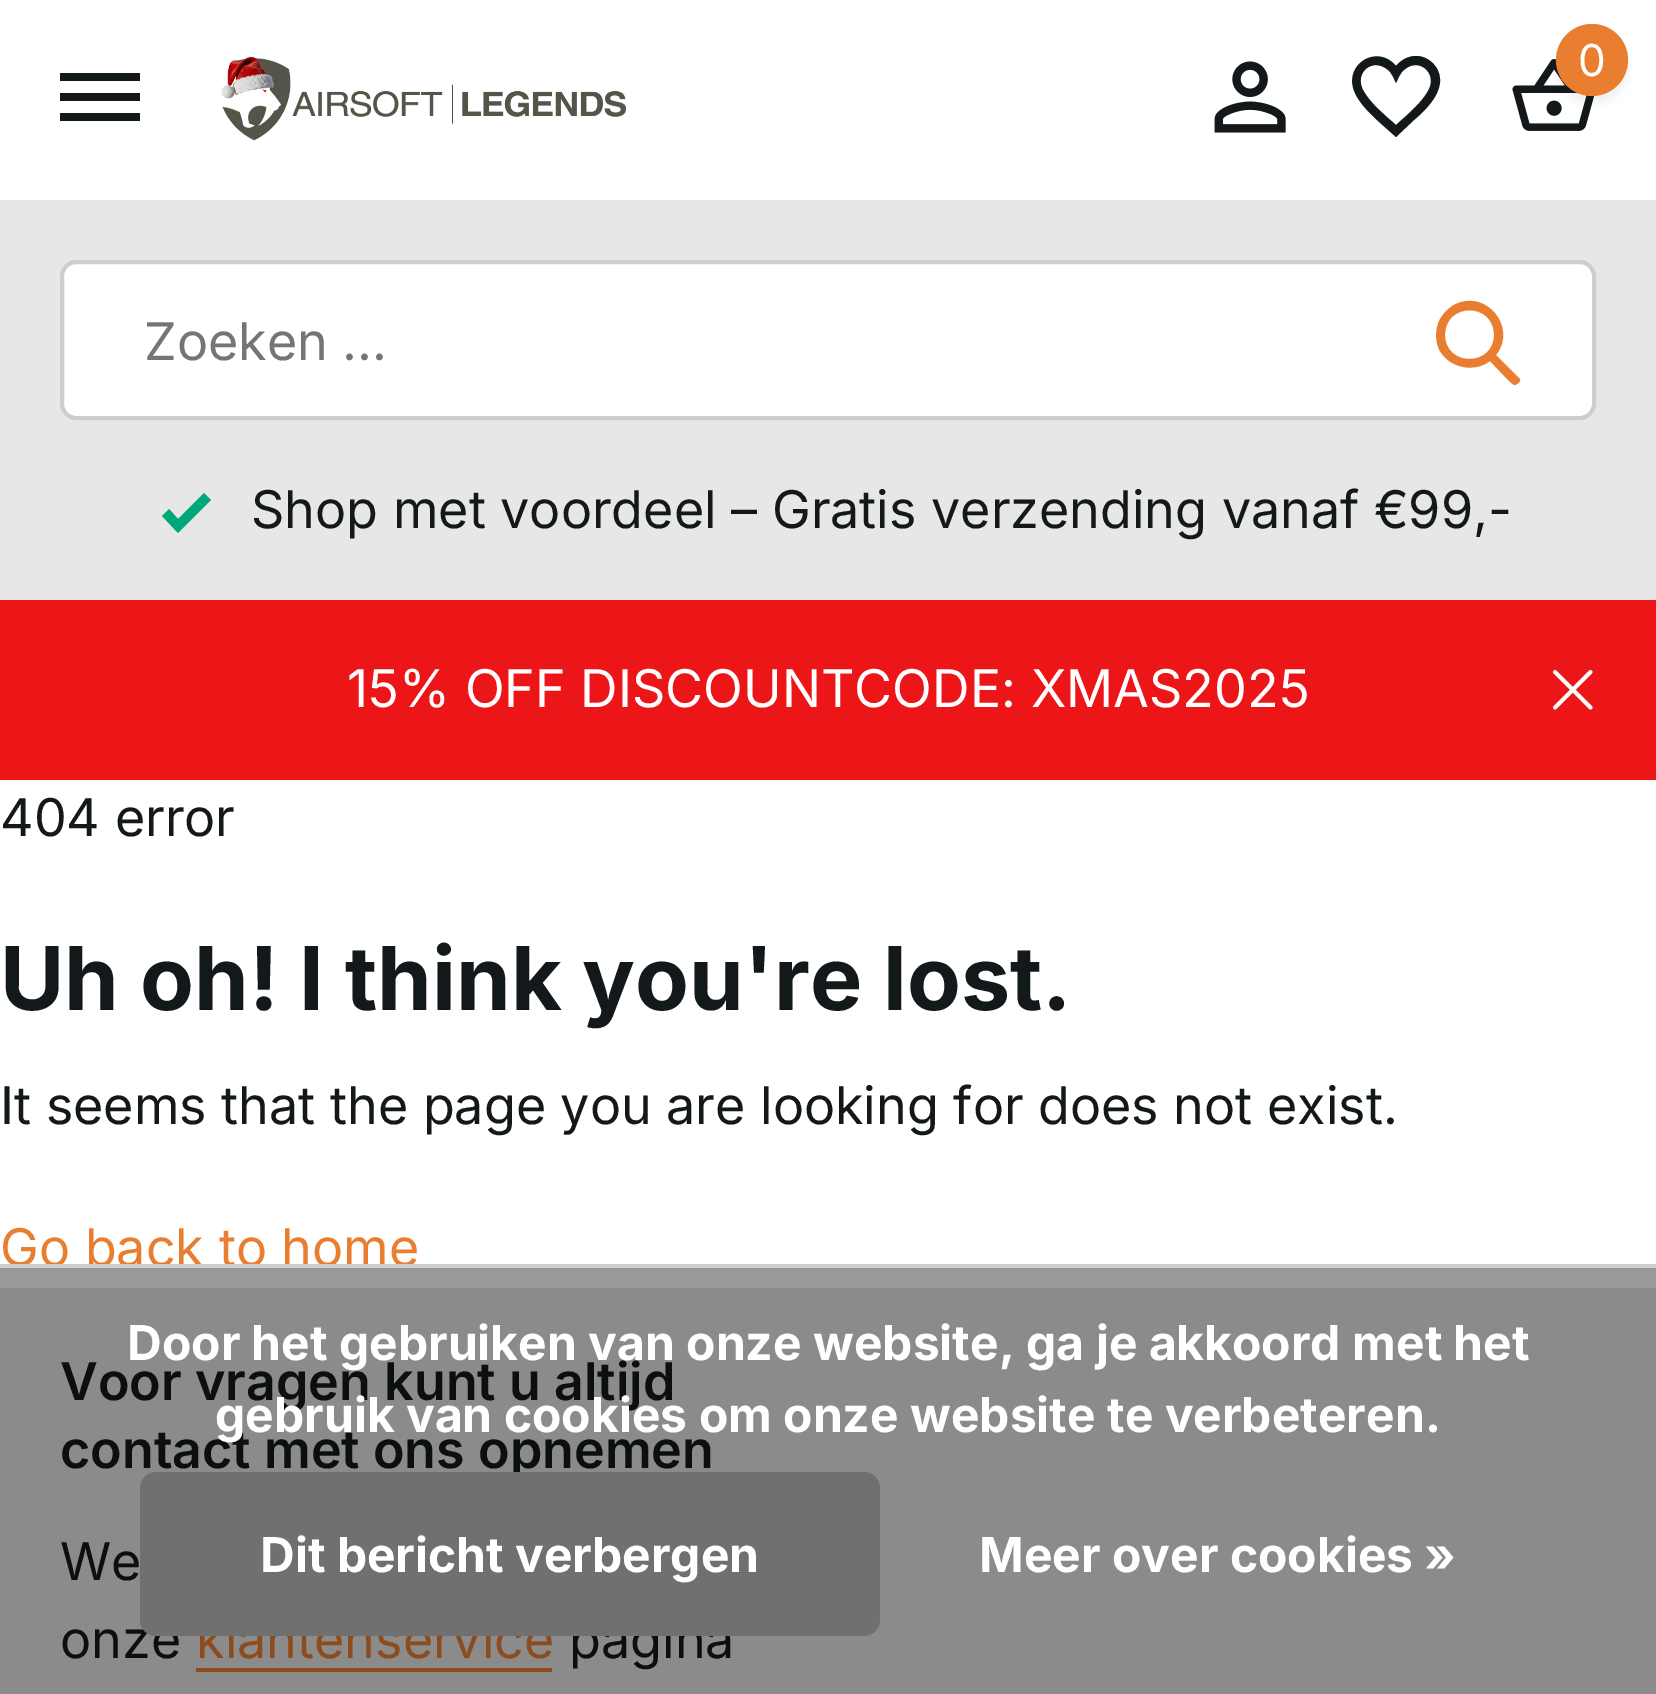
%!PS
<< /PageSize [1656 1694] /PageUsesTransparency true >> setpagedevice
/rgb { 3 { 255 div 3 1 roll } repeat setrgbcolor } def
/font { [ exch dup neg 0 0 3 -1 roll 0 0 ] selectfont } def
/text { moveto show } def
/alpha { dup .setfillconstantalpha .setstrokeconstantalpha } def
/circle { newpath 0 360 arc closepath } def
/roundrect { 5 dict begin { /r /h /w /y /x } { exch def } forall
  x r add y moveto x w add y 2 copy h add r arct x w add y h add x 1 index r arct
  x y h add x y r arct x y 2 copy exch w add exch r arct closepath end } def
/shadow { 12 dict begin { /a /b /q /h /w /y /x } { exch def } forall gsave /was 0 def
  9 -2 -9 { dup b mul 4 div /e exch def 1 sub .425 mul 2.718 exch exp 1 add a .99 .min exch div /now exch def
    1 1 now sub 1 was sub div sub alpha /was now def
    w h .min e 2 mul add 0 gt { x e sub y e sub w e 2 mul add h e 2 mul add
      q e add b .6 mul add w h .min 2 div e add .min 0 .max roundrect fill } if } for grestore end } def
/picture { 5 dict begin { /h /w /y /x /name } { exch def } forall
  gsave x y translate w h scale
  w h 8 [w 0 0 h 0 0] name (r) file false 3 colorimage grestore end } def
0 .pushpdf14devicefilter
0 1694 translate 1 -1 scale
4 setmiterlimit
255 255 255 rgb
0 0 1656 1694 rectfill
19 25 27 rgb
60 121 moveto 80 0 rlineto 0 -8 rlineto -80 0 rlineto closepath 60 101 moveto 80 0 rlineto 0 -8 rlineto -80 0 rlineto closepath 60 73 moveto 0 8 rlineto 80 0 rlineto 0 -8 rlineto closepath fill
(img_01.rgb) 221 56 405 85 picture
(img_02.rgb) 1214 61 72 72 picture
1416 56 moveto -8 0 -15 4 -20 10 rcurveto -19 -23 -54 -1 -41 27 rcurveto 7 16 28 32 41 44 rcurveto 18 -17 rlineto 14 -12 35 -33 22 -53 rcurveto -5 -7 -12 -11 -20 -11 rcurveto closepath 1396 125 moveto -8 -7 rlineto -9 -8 -19 -17 -25 -28 rcurveto -9 -18 10 -33 25 -20 rcurveto 4 3 6 9 8 13 rcurveto 2 -4 4 -10 8 -13 rcurveto 14 -13 33 2 25 19 rcurveto -6 13 -22 26 -33 36 rcurveto closepath fill
(img_03.rgb) 1512 59 83 72 picture
0 0 0 rgb
1556 32 72 72 36 4 0.06 shadow
233 126 48 rgb
1592 60 36 circle fill
231 231 231 rgb
0 200 1656 400 rectfill
255 255 255 rgb
62 262 1532 156 14 roundrect gsave fill grestore
206 206 206 rgb
4 setlinewidth
stroke
233 126 48 rgb
1519 378 moveto 3 3 -1 5 -2 6 rcurveto -3 3 -6 -2 -8 -3 rcurveto -19 -20 rlineto -16 12 -40 7 -50 -10 rcurveto -5 -9 -5 -20 -1 -30 rcurveto 3 -6 8 -12 15 -16 rcurveto 31 -17 64 22 42 50 rcurveto closepath 1445 335 moveto 0 32 49 32 49 0 rcurveto 0 -33 -49 -33 -49 0 rcurveto closepath fill
0 167 121 rgb
204 493 moveto 7 7 rlineto -33 33 rlineto -16 -17 rlineto 7 -7 rlineto 9 10 rlineto closepath fill
236 21 24 rgb
0 600 1656 180 rectfill
(img_04.rgb) 1553 669 40 41 picture
231 231 231 rgb
0 1288 1656 406 rectfill
233 126 48 rgb
196 1668 356 4 rectfill
/Inter-Regular 44 font
255 255 255 rgb
(0) 1578 76 text
/Inter-Regular 52 font
117 117 117 rgb
(Zoeken ...) 144 360 text
19 25 27 rgb
(Shop met voordeel – Gratis verzending vanaf €99,-) 251 528 text
255 255 255 rgb
(15% OFF DISCOUNTCODE: XMAS2025) 347 707 text
19 25 27 rgb
(404 error) 0 836 text
/Inter-Bold 88 font
(Uh oh! I think you're lost.) 0 1010 text
/Inter-Regular 52 font
(It seems that the page you are looking for does not exist.) 0 1124 text
233 126 48 rgb
(Go back to home) 0 1266 text
206 206 206 rgb
0 1264 1656 4 rectfill
/Inter-SemiBold 52 font
19 25 27 rgb
(Voor vragen kunt u altijd) 60 1400 text
(contact met ons opnemen) 60 1468 text
/Inter-Regular 52 font
(We) 60 1580 text
(onze) 60 1658 text
233 126 48 rgb
(klantenservice) 196 1658 text
19 25 27 rgb
(pagina) 569 1658 text
0.4 alpha
0 0 0 rgb
0 1268 1656 426 rectfill
/Inter-Bold 48 font
1 alpha
255 255 255 rgb
(Meer over cookies ») 979 1572 text
112 112 112 rgb
140 1472 740 164 16 roundrect fill
255 255 255 rgb
(Dit bericht verbergen) 260 1572 text
(gebruik van cookies om onze website te verbeteren.) 215 1432 text
(Door het gebruiken van onze website, ga je akkoord met het) 127 1360 text
.poppdf14devicefilter showpage
